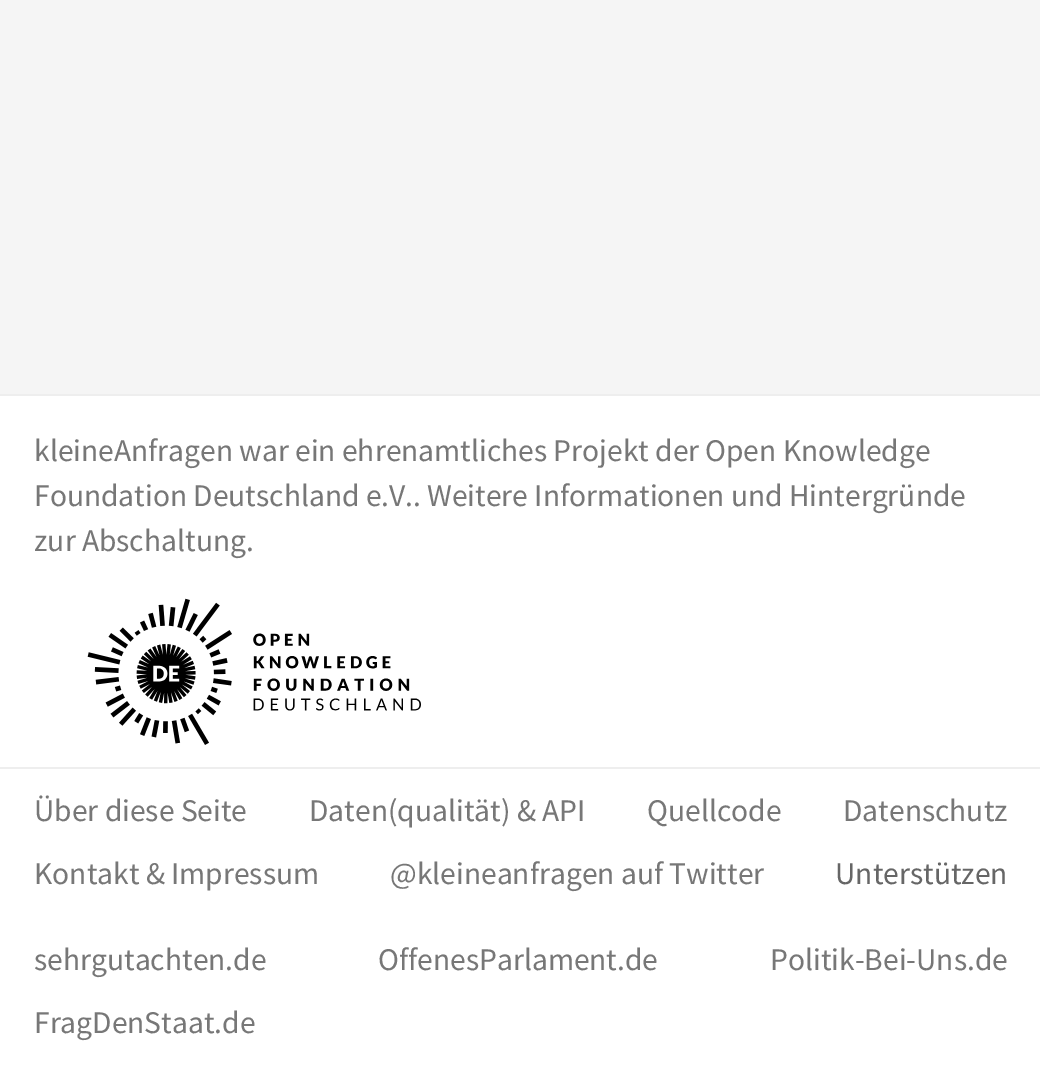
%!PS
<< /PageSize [1040 1087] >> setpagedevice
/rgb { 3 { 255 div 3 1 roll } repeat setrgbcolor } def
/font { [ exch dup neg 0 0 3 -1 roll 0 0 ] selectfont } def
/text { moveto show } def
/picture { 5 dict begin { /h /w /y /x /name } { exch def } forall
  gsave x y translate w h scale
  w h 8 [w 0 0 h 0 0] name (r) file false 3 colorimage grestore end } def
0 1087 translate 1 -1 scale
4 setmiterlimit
255 255 255 rgb
0 0 1040 1087 rectfill
245 245 245 rgb
0 0 1040 394 rectfill
238 238 238 rgb
0 394 1040 2 rectfill
(img_01.rgb) 87 598 334 147 picture
0 767 1040 2 rectfill
/SourceSansPro-Regular 31.5 font
119 119 119 rgb
(kleineAnfragen war ein ehrenamtliches Projekt der) 34 461 text
(Open Knowledge) 705 461 text
(Foundation Deutschland e.V.) 34 506 text
(.) 413 506 text
(Weitere Informationen und Hintergründe) 427 506 text
(zur Abschaltung) 34 551 text
(.) 246 551 text
(Über diese Seite) 34 821 text
(Daten\(qualität\) & API) 309 821 text
(Quellcode) 647 821 text
(Datenschutz) 843 821 text
(Kontakt & Impressum) 34 884 text
(@kleineanfragen auf Twitter) 390 884 text
102 102 102 rgb
(Unterstützen) 835 884 text
119 119 119 rgb
(sehrgutachten.de) 34 970 text
(OffenesParlament.de) 378 970 text
(Politik-Bei-Uns.de) 770 970 text
(FragDenStaat.de) 34 1033 text
showpage
